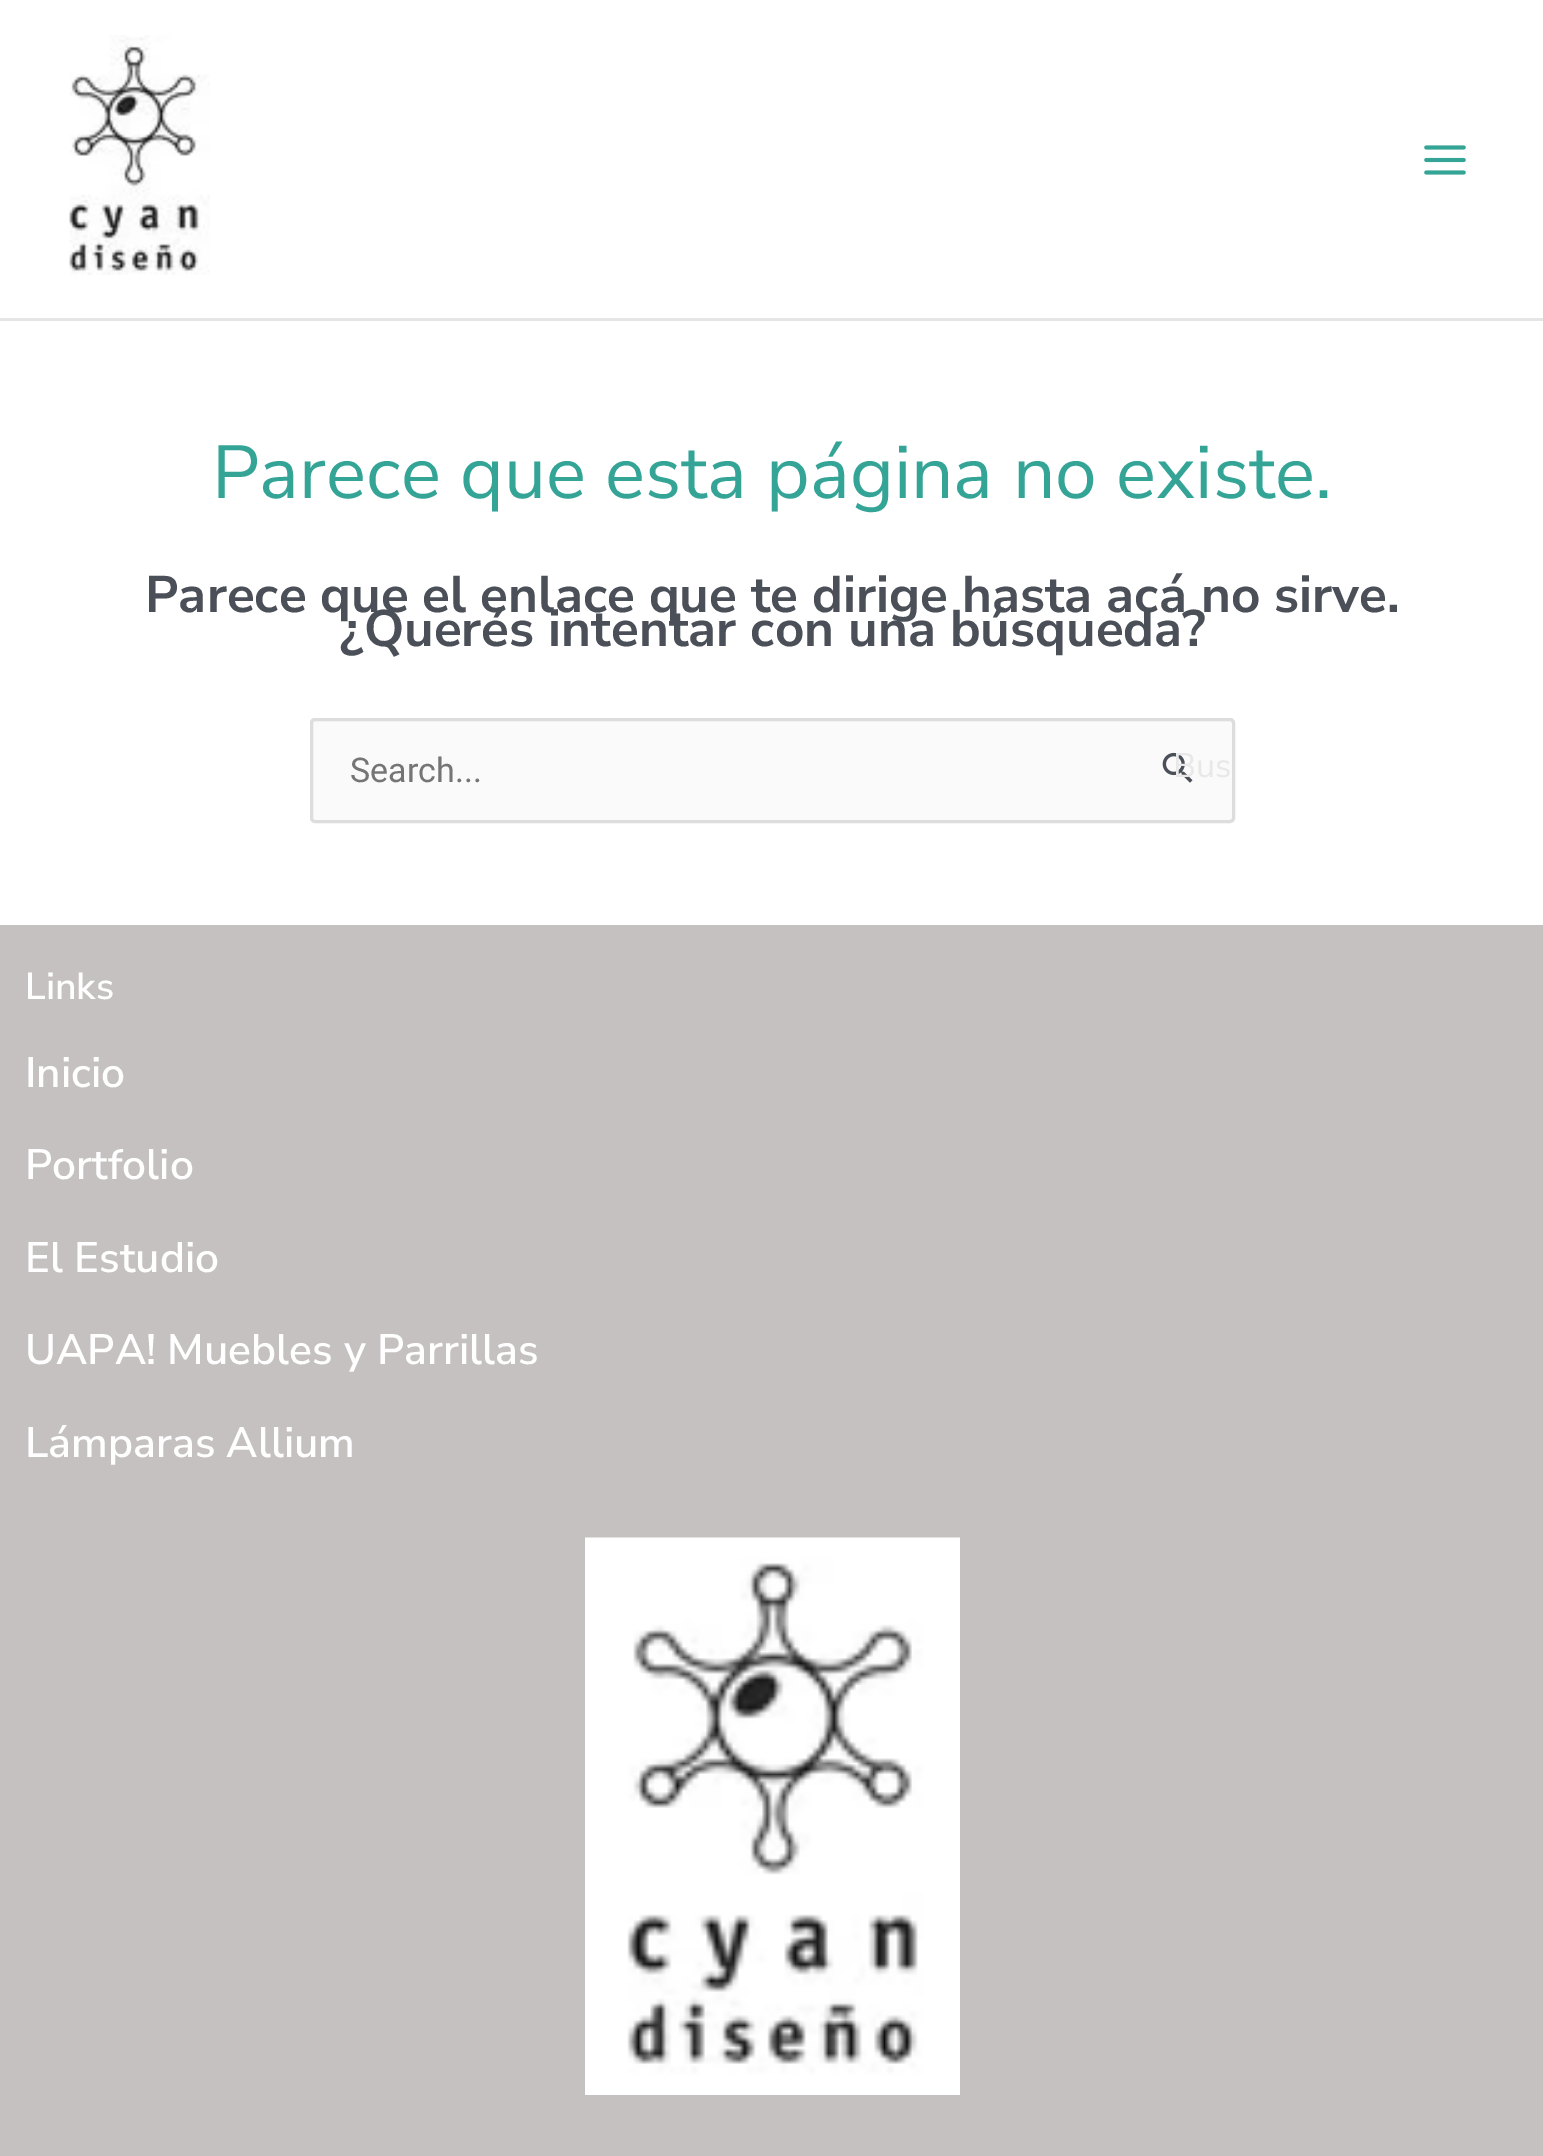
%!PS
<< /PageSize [1543 2156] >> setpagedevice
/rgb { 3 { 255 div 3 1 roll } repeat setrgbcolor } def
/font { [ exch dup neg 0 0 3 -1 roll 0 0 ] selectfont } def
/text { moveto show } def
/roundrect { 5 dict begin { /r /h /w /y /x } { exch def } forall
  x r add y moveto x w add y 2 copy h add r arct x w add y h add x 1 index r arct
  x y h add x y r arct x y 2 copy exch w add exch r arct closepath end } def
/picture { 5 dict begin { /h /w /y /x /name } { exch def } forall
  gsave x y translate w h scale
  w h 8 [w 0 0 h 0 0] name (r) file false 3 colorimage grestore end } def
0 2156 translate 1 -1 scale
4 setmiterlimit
255 255 255 rgb
0 0 1543 2156 rectfill
229 229 229 rgb
0 318 1543 3 rectfill
(img_01.rgb) 69 35 141 240 picture
(img_02.rgb) 1424 145 42 30 picture
250 250 250 rgb
311.5 719.5 922 102 3.5 roundrect gsave fill grestore
221 221 221 rgb
3 setlinewidth
stroke
(img_03.rgb) 1162 752 31 31 picture
198 193 193 rgb
0 925 1543 1231 rectfill
(img_04.rgb) 585 1537 375 558 picture
/NunitoSans-Regular 75 font
51 164 149 rgb
(Parece que esta página no existe.) 212 498 text
/NunitoSans-Bold 51.3 font
75 79 88 rgb
(Parece que el enlace que te dirige hasta acá no sirve.) 145 612 text
(¿Querés intentar con una búsqueda?) 340 646 text
/Roboto-Regular 34 font
117 117 117 rgb
(Search...) 350 782 text
/NunitoSans-Regular 34 font
232 232 233 rgb
(Bus) 1173 777 text
/NunitoSans-SemiBold 37.5 font
255 255 255 rgb
(Links) 25 999 text
/NunitoSans-SemiBold 42.5 font
(Inicio) 25 1087 text
(Portfolio) 25 1179 text
(El Estudio) 25 1272 text
(UAPA! Muebles y Parrillas) 25 1364 text
(Lámparas Allium) 25 1457 text
showpage
